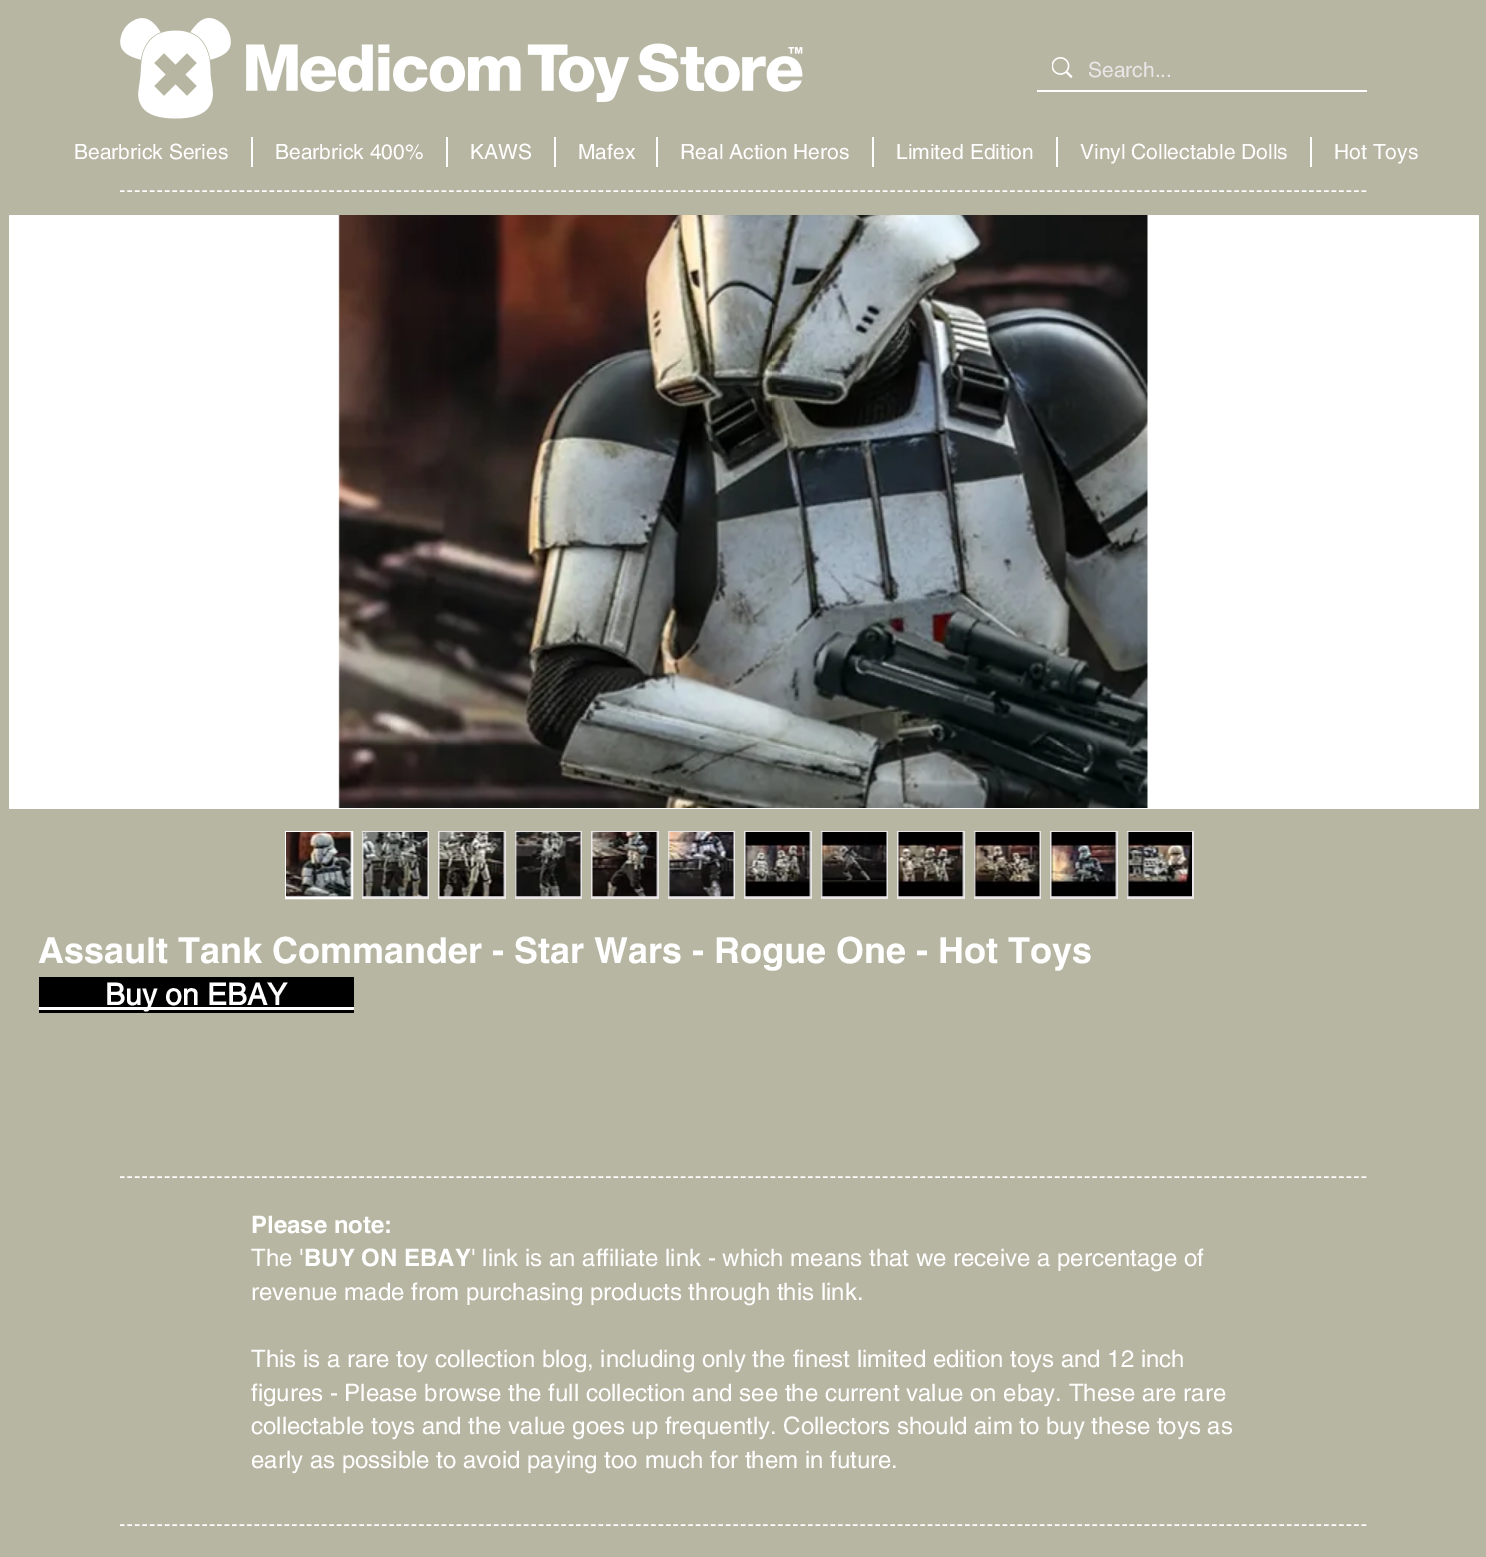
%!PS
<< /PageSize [1486 1557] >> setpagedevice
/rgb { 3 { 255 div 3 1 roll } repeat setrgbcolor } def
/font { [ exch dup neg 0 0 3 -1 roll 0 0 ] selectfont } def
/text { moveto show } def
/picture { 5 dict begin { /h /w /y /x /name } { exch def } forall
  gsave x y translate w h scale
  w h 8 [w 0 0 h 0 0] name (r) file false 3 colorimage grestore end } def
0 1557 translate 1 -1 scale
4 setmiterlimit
183 182 163 rgb
0 0 1486 1557 rectfill
(img_01.rgb) 120 18 111 101 picture
(img_02.rgb) 246 43 557 59 picture
255 255 255 rgb
1037 90 330 2 rectfill
(img_03.rgb) 1052 57 21 21 picture
251 137 2 30 rectfill
446 137 2 30 rectfill
554 137 2 30 rectfill
656 137 2 30 rectfill
872 137 2 30 rectfill
1056 137 2 30 rectfill
1310 137 2 30 rectfill
1.5 setlinewidth
[4.5 2.98] 0 setdash
120 191 moveto 1246.5 0 rlineto stroke
9 215 1470 594 rectfill
(img_04.rgb) 338 215 810 593 picture
232 230 230 rgb
286 832 moveto 66 0 rlineto 0 66 rlineto -66 0 rlineto closepath gsave fill grestore
255 255 255 rgb
2 setlinewidth
[] 0 setdash
stroke
(img_05.rgb) 286 832 66 65 picture
232 230 230 rgb
362 831 67 68 rectfill
(img_06.rgb) 362 832 66 65 picture
438 831 68 68 rectfill
(img_07.rgb) 439 832 66 65 picture
515 831 67 68 rectfill
(img_08.rgb) 515 832 66 65 picture
591 831 68 68 rectfill
(img_09.rgb) 592 832 66 65 picture
668 831 67 68 rectfill
(img_10.rgb) 668 832 66 65 picture
744 831 68 68 rectfill
(img_11.rgb) 745 832 66 65 picture
821 831 67 68 rectfill
(img_12.rgb) 821 832 66 65 picture
897 831 68 68 rectfill
(img_13.rgb) 898 832 66 65 picture
974 831 67 68 rectfill
(img_14.rgb) 974 832 66 65 picture
1050 831 68 68 rectfill
(img_15.rgb) 1051 832 66 65 picture
1127 831 67 68 rectfill
(img_16.rgb) 1127 832 65 65 picture
0 0 0 rgb
39 977 315 36 rectfill
255 255 255 rgb
39 1007 315 3 rectfill
1.5 setlinewidth
[4.5 2.98] 0 setdash
120 1177 moveto 1246.5 0 rlineto stroke
120 1525 moveto 1246.5 0 rlineto stroke
/helvetica-Regular 21 font
232 230 230 rgb
(Search...) 1088 77 text
255 255 255 rgb
(Bearbrick Series) 74 159 text
(Bearbrick 400%) 275 159 text
(KAWS) 470 159 text
(Mafex) 578 159 text
(Real Action Heros) 680 159 text
(Limited Edition) 896 159 text
(Vinyl Collectable Dolls) 1080 159 text
(Hot Toys) 1334 159 text
/helvetica-Bold 36 font
(Assault Tank Commander - Star Wars - Rogue One - Hot Toys) 38 963 text
/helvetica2-Bold 30 font
(Buy on EBAY) 105 1005 text
/helvetica-Bold 24 font
(Please note:) 251 1233 text
/helvetica-Regular 24 font
(The ') 251 1266 text
/helvetica-Bold 24 font
(BUY ON EBAY) 304 1266 text
/helvetica-Regular 24 font
(' link is an affiliate link - which means that we receive a percentage of) 471 1266 text
(revenue made from purchasing products through this link.) 251 1300 text
(This is a rare toy collection blog, including only the finest limited edition toys and 12 inch) 251 1367 text
(figures - Please browse the full collection and see the current value on ebay. These are rare) 251 1401 text
(collectable toys and the value goes up frequently. Collectors should aim to buy these toys as) 251 1434 text
(early as possible to avoid paying too much for them in future.) 251 1468 text
showpage
